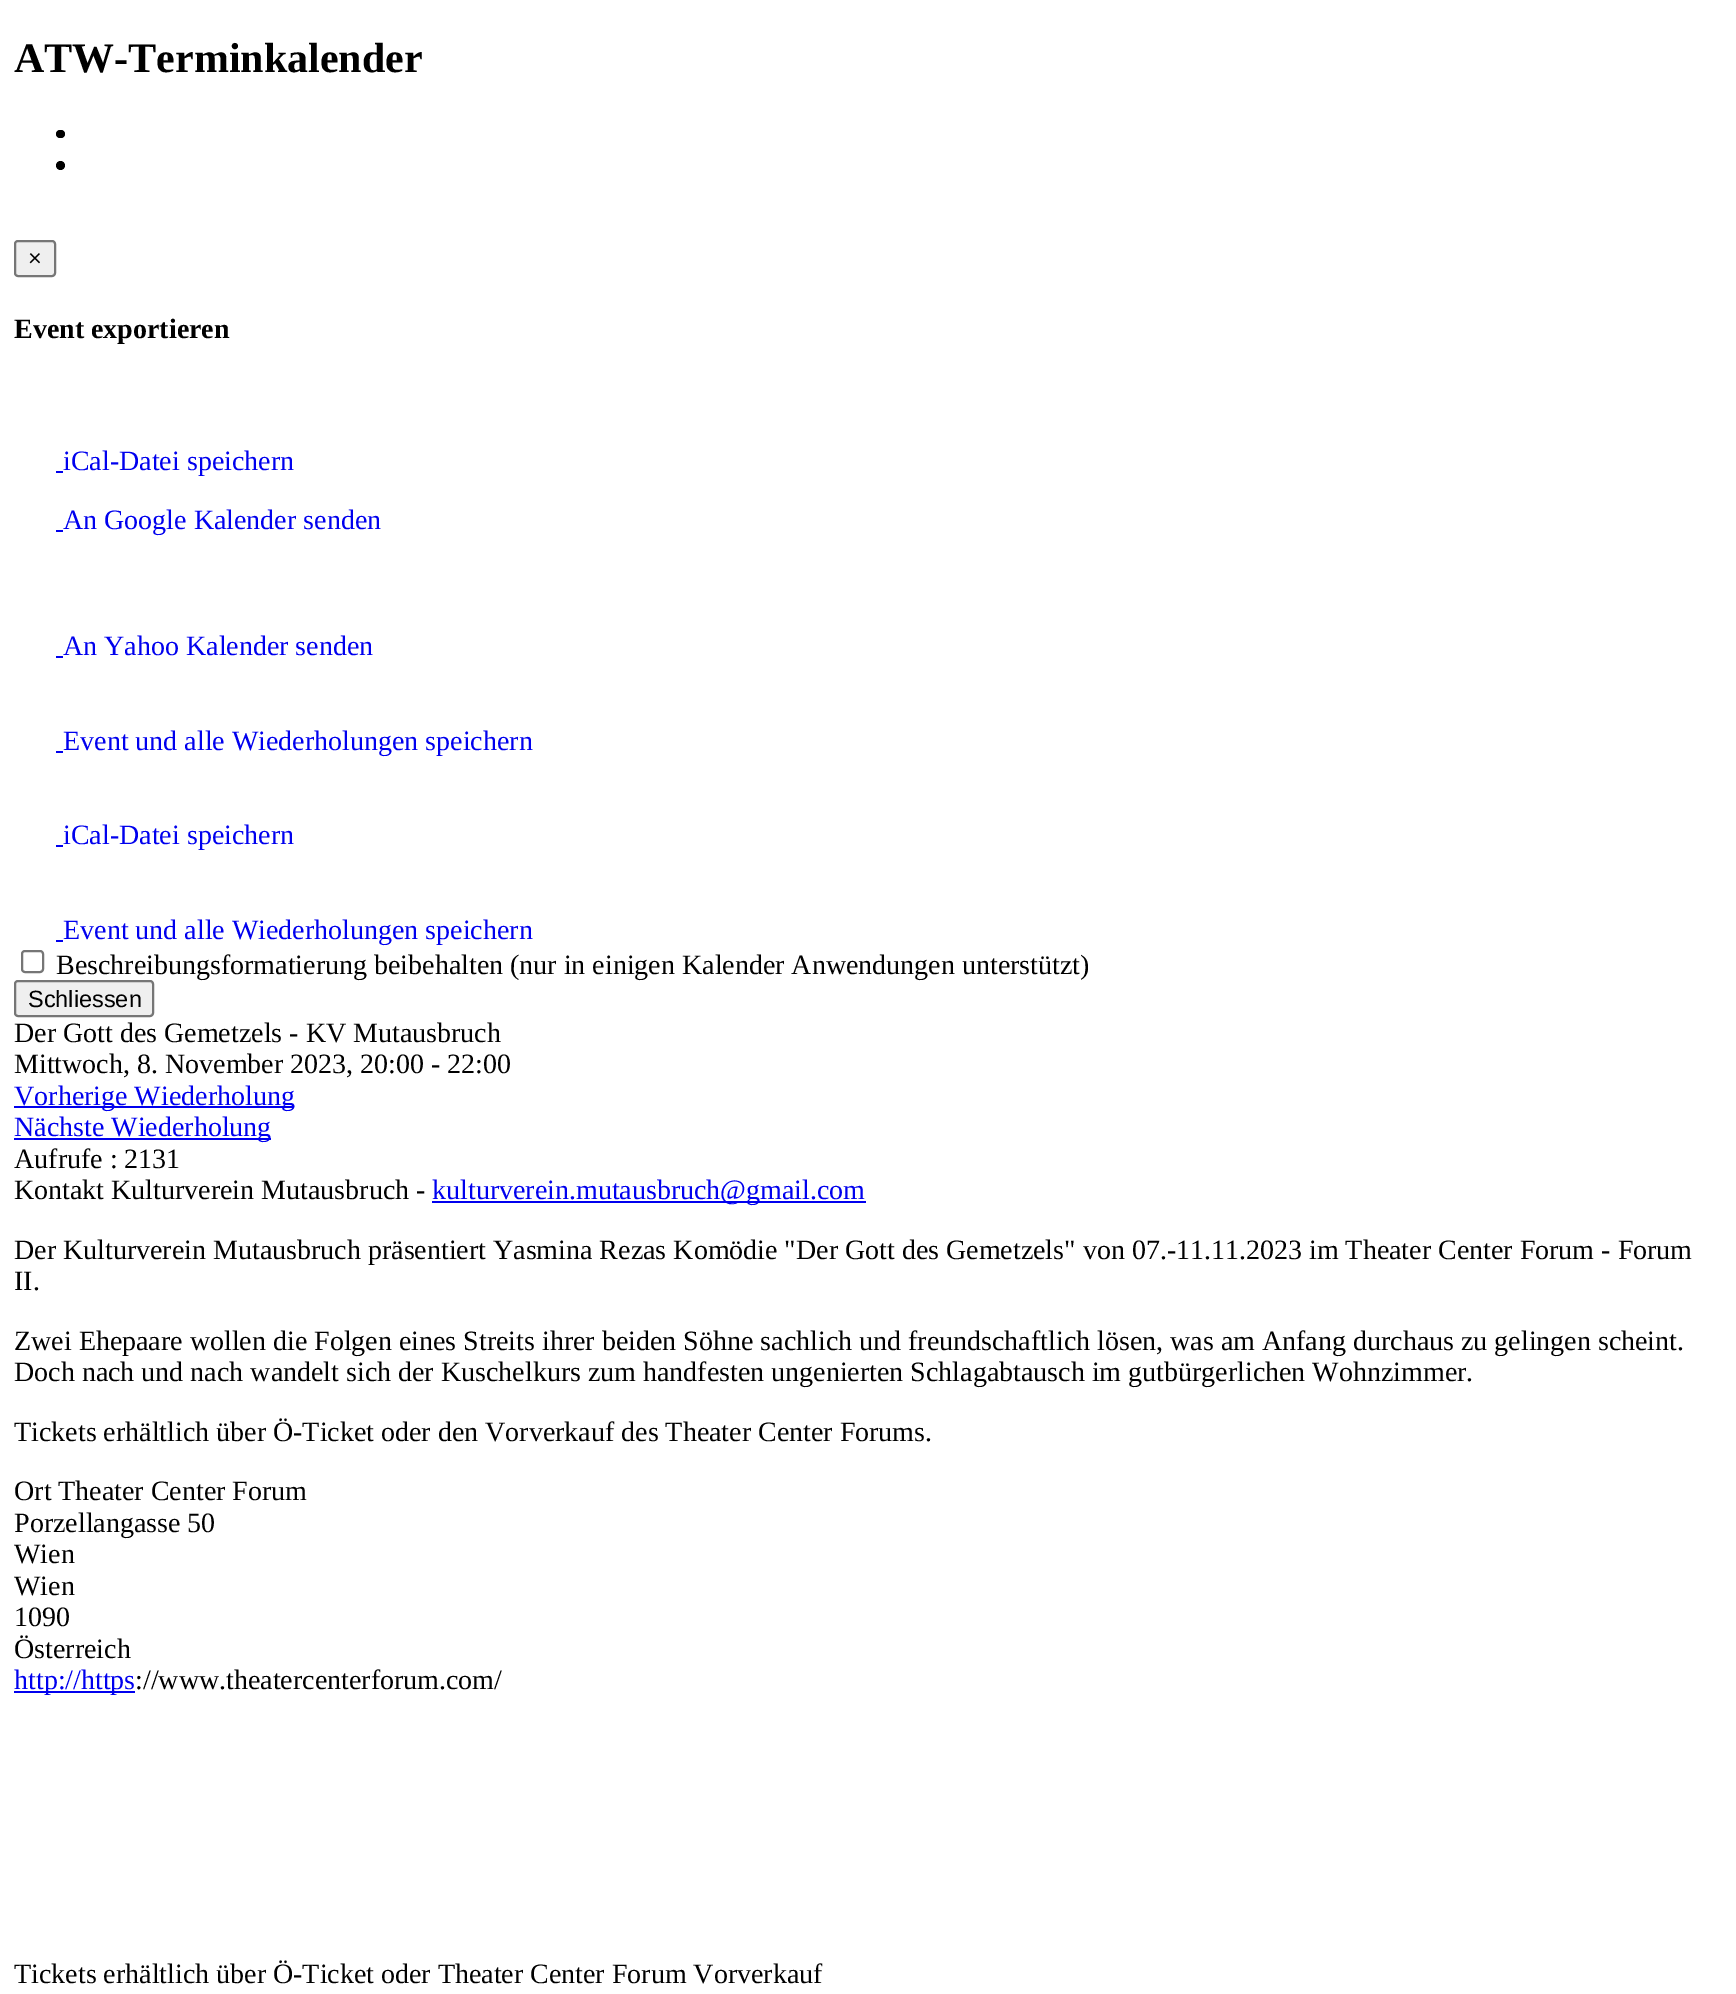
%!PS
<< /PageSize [1736 1994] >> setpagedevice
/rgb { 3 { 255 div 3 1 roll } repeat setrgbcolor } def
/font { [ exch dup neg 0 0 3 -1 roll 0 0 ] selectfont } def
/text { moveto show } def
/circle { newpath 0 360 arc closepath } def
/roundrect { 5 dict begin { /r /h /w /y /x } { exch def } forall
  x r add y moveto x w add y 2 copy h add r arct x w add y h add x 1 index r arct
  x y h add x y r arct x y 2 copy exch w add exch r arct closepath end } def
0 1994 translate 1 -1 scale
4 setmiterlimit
255 255 255 rgb
0 0 1736 1994 rectfill
0 0 0 rgb
56 130 9 8 4 roundrect fill
60.5 165.5 4.5 circle fill
239 239 239 rgb
15 241 40 35 3 roundrect gsave fill grestore
118 118 118 rgb
2 setlinewidth
stroke
0 0 238 rgb
56 471 7 2 rectfill
56 530 7 2 rectfill
56 656 7 2 rectfill
56 751 7 2 rectfill
56 845 7 2 rectfill
56 940 7 2 rectfill
118 118 118 rgb
22 951 21 21 3 roundrect stroke
0 0 238 rgb
14 1106 280 2 rectfill
14 1138 257 2 rectfill
432 1201 434 2 rectfill
14 1691 121 2 rectfill
/LiberationSerif-Bold 42 font
0 0 0 rgb
(ATW-Terminkalender) 14 72 text
/LiberationSans-Regular 23.5 font
(×) 28 266 text
/LiberationSerif-Bold 28 font
(Event exportieren) 14 338 text
/LiberationSerif-Regular 28 font
0 0 238 rgb
(iCal-Datei speichern) 63 470 text
(An Google Kalender senden) 63 529 text
(An Yahoo Kalender senden) 63 655 text
(Event und alle Wiederholungen speichern) 63 750 text
(iCal-Datei speichern) 63 844 text
(Event und alle Wiederholungen speichern) 63 939 text
0 0 0 rgb
(Beschreibungsformatierung beibehalten \(nur in einigen Kalender Anwendungen unterstützt\)) 56 974 text
239 239 239 rgb
15 981 138 35 3 roundrect gsave fill grestore
118 118 118 rgb
stroke
/LiberationSans-Regular 23.5 font
0 0 0 rgb
(Schliessen) 28 1007 text
/LiberationSerif-Regular 28 font
(Der Gott des Gemetzels - KV Mutausbruch) 14 1042 text
(Mittwoch, 8. November 2023, 20:00 - 22:00) 14 1073 text
0 0 238 rgb
(Vorherige Wiederholung) 14 1105 text
(Nächste Wiederholung) 14 1136 text
0 0 0 rgb
(Aufrufe : 2131) 14 1168 text
(Kontakt Kulturverein Mutausbruch -) 14 1199 text
0 0 238 rgb
(kulturverein.mutausbruch@gmail.com) 432 1199 text
0 0 0 rgb
(Der Kulturverein Mutausbruch präsentiert Yasmina Rezas Komödie "Der Gott des Gemetzels" von 07.-11.11.2023 im Theater Center Forum - Forum) 14 1259 text
(II.) 14 1290 text
(Zwei Ehepaare wollen die Folgen eines Streits ihrer beiden Söhne sachlich und freundschaftlich lösen, was am Anfang durchaus zu gelingen scheint.) 14 1350 text
(Doch nach und nach wandelt sich der Kuschelkurs zum handfesten ungenierten Schlagabtausch im gutbürgerlichen Wohnzimmer.) 14 1381 text
(Tickets erhältlich über Ö-Ticket oder den Vorverkauf des Theater Center Forums.) 14 1441 text
(Ort Theater Center Forum) 14 1500 text
(Porzellangasse 50) 14 1532 text
(Wien) 14 1563 text
(Wien) 14 1595 text
(1090) 14 1626 text
(Österreich) 14 1658 text
0 0 238 rgb
(http://https) 14 1689 text
0 0 0 rgb
(://www.theatercenterforum.com/) 135 1689 text
(Tickets erhältlich über Ö-Ticket oder Theater Center Forum Vorverkauf) 14 1983 text
showpage
